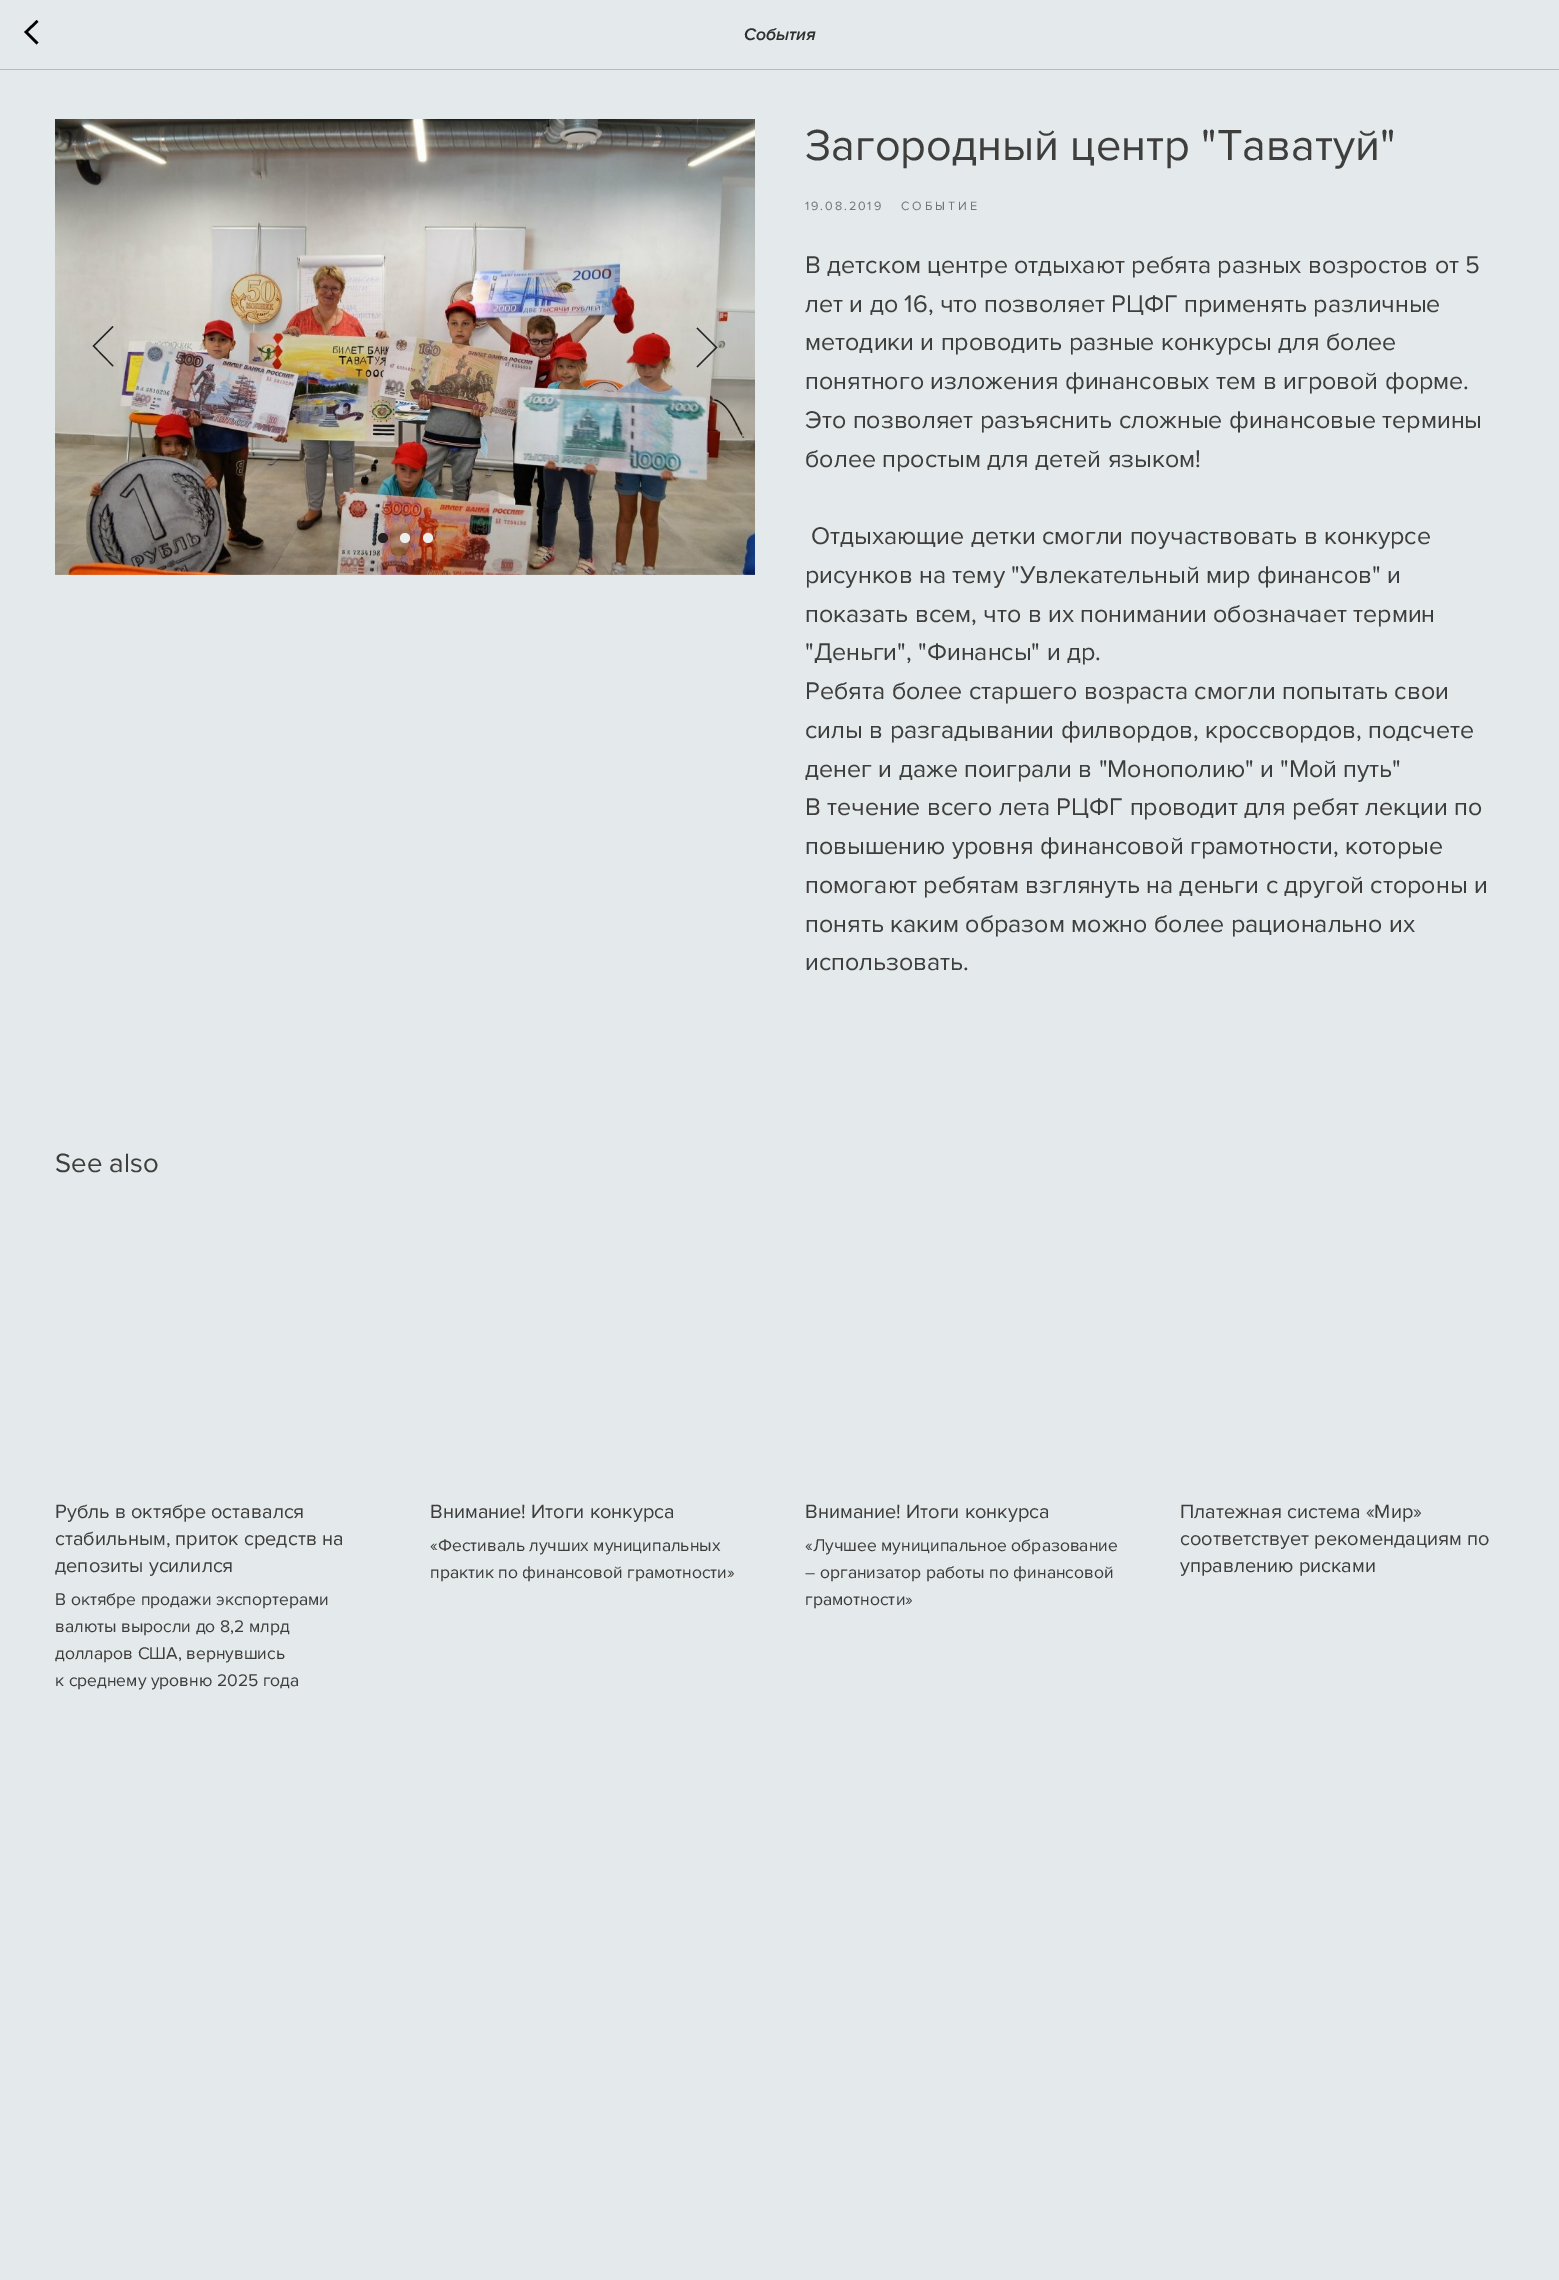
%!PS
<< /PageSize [1559 2280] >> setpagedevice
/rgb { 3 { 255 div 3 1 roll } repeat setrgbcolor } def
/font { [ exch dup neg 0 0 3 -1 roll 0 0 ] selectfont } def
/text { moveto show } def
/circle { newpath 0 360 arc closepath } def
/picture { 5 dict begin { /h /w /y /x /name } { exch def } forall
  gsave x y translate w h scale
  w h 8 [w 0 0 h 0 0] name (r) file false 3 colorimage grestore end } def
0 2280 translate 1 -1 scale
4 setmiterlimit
228 233 236 rgb
0 0 1559 2280 rectfill
182 186 189 rgb
0 69 1559 1 rectfill
0 0 0 rgb
2.5 setlinewidth
37.5 43.5 moveto -11.5 -11.5 rlineto 11.5 -11 rlineto stroke
(img_01.rgb) 55 119 700 456 picture
34 34 34 rgb
1.2 setlinewidth
113 366 moveto -19.5 -20 rlineto 19.5 -19.5 rlineto stroke
697 328 moveto 19.5 19.5 rlineto -19.5 19.5 rlineto stroke
383 538 5 circle fill
238 238 238 rgb
405 538 5 circle fill
428 538 5 circle fill
/ProximaNova-SemiBoldItalic 17.5 font
46 47 47 rgb
(События) 744 40 text
/ProximaNova-Regular 45 font
62 62 60 rgb
(Загородный центр "Таватуй") 805 160 text
/ProximaNova-Regular 12.5 font
114 117 118 rgb
805 210 moveto 1.9 0 (19.08.2019) ashow
901 210 moveto 3 0 (СОБЫТИЕ) ashow
/ProximaNova-Regular 25 font
62 62 60 rgb
(В детском центре отдыхают ребята разных возростов от 5) 805 273 text
(лет и до 16, что позволяет РЦФГ применять различные) 805 312 text
(методики и проводить разные конкурсы для более) 805 350 text
(понятного изложения финансовых тем в игровой форме.) 805 389 text
(Это позволяет разъяснить сложные финансовые термины) 805 428 text
(более простым для детей языком!) 805 467 text
(Отдыхающие детки смогли поучаствовать в конкурсе) 811 544 text
(рисунков на тему "Увлекательный мир финансов" и) 805 583 text
(показать всем, что в их понимании обозначает термин) 805 622 text
("Деньги", "Финансы" и др.) 805 660 text
(Ребята более старшего возраста смогли попытать свои) 805 699 text
(силы в разгадывании филвордов, кроссвордов, подсчете) 805 738 text
(денег и даже поиграли в "Монополию" и "Мой путь") 805 777 text
(В течение всего лета РЦФГ проводит для ребят лекции по) 805 815 text
(повышению уровня финансовой грамотности, которые) 805 854 text
(помогают ребятам взглянуть на деньги с другой стороны и) 805 893 text
(понять каким образом можно более рационально их) 805 932 text
(использовать.) 805 970 text
/ProximaNova-Regular 27.5 font
(See also) 55 1172 text
/ProximaNova-Regular 20 font
(Рубль в октябре оставался) 55 1518 text
(стабильным, приток средств на) 55 1545 text
(депозиты усилился) 55 1572 text
/ProximaNova-Regular 17.5 font
(В октябре продажи экспортерами) 55 1605 text
(валюты выросли до 8,2 млрд) 55 1632 text
(долларов США, вернувшись) 55 1659 text
(к среднему уровню 2025 года) 55 1686 text
/ProximaNova-Regular 20 font
(Внимание! Итоги конкурса) 430 1518 text
/ProximaNova-Regular 17.5 font
(«Фестиваль лучших муниципальных) 430 1551 text
(практик по финансовой грамотности») 430 1578 text
/ProximaNova-Regular 20 font
(Внимание! Итоги конкурса) 805 1518 text
/ProximaNova-Regular 17.5 font
(«Лучшее муниципальное образование) 805 1551 text
(– организатор работы по финансовой) 805 1578 text
(грамотности») 805 1605 text
/ProximaNova-Regular 20 font
(Платежная система «Мир») 1180 1518 text
(соответствует рекомендациям по) 1180 1545 text
(управлению рисками) 1180 1572 text
showpage
